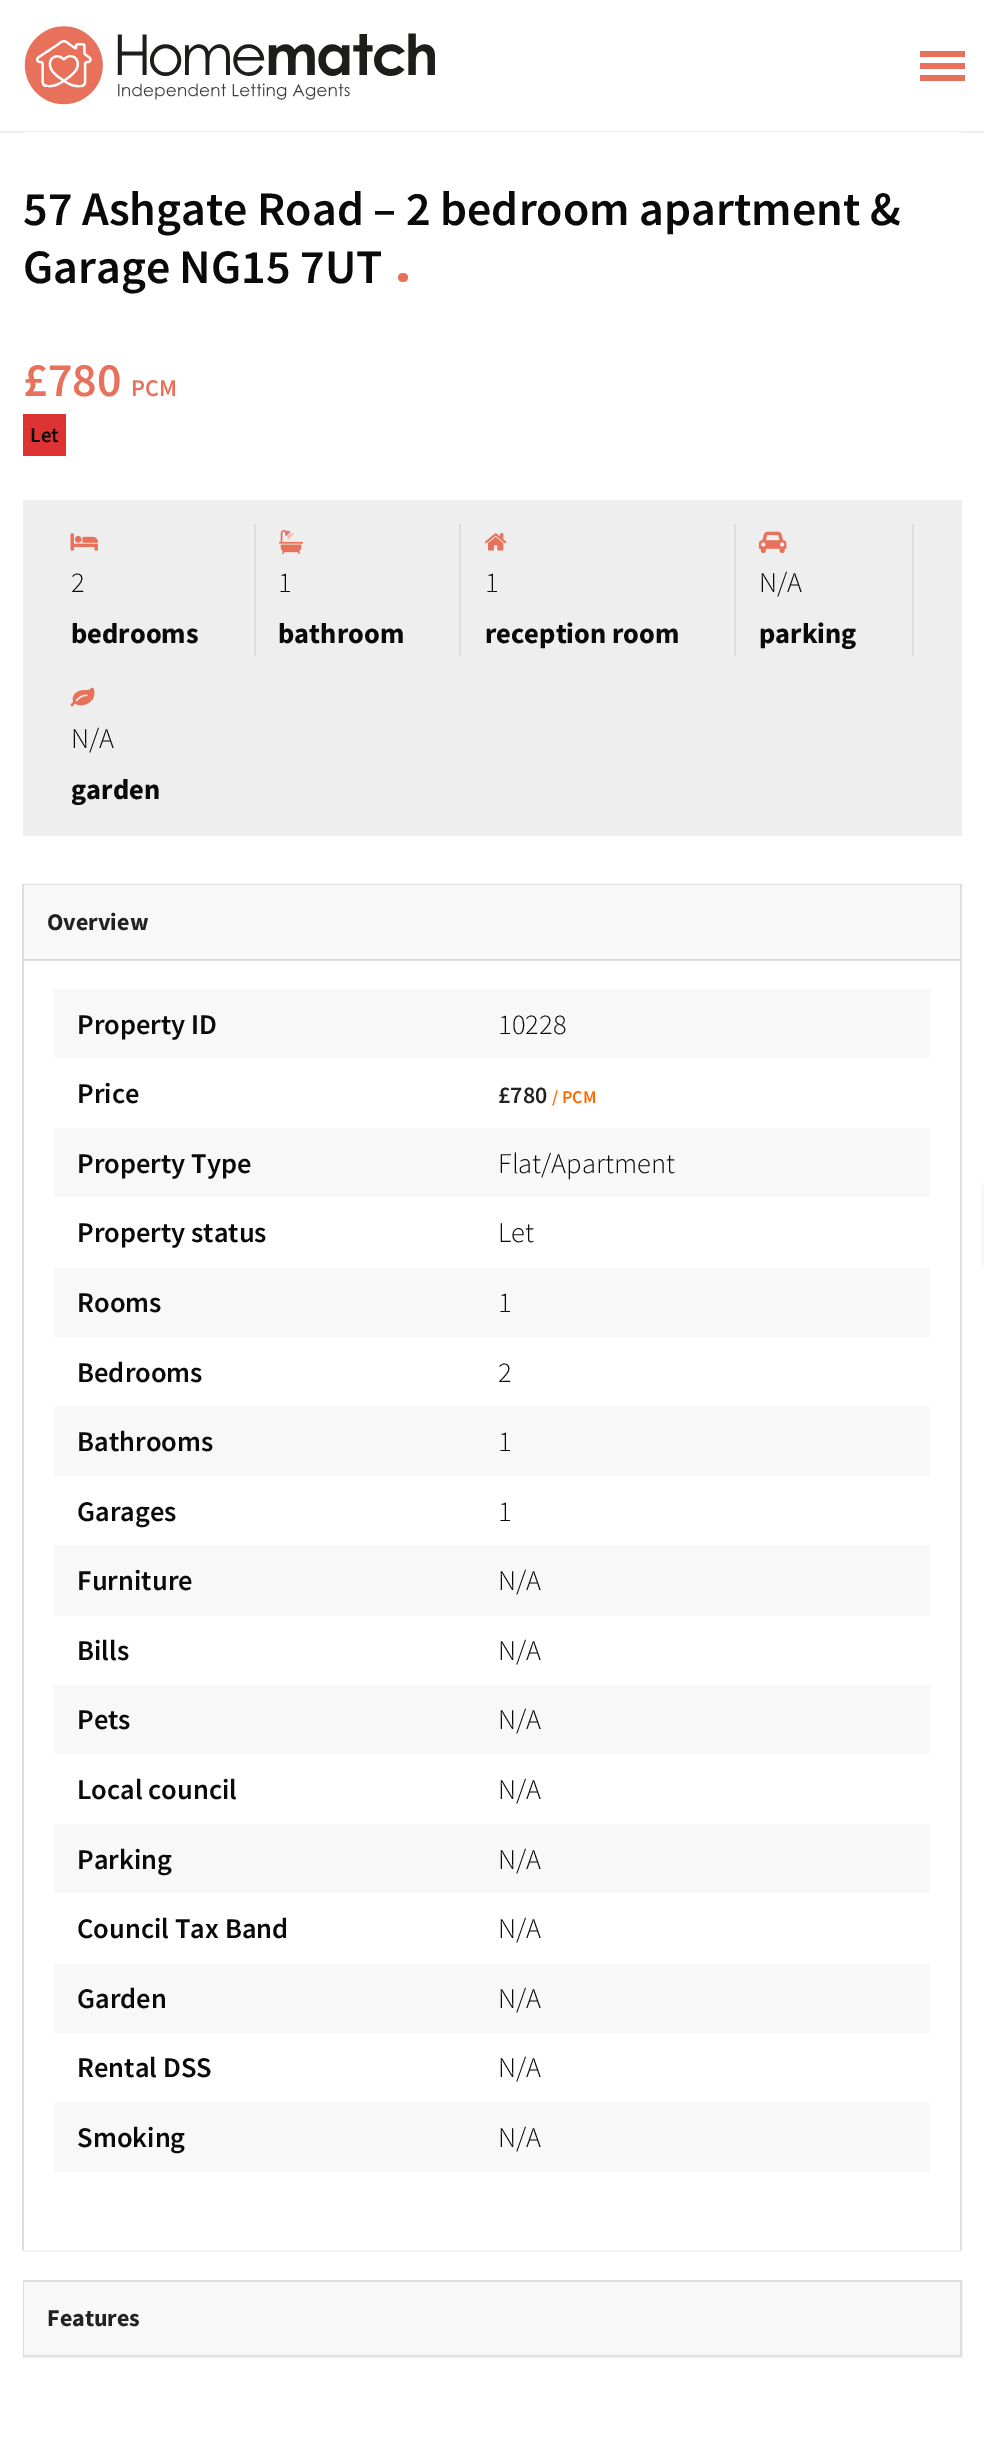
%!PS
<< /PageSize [984 2448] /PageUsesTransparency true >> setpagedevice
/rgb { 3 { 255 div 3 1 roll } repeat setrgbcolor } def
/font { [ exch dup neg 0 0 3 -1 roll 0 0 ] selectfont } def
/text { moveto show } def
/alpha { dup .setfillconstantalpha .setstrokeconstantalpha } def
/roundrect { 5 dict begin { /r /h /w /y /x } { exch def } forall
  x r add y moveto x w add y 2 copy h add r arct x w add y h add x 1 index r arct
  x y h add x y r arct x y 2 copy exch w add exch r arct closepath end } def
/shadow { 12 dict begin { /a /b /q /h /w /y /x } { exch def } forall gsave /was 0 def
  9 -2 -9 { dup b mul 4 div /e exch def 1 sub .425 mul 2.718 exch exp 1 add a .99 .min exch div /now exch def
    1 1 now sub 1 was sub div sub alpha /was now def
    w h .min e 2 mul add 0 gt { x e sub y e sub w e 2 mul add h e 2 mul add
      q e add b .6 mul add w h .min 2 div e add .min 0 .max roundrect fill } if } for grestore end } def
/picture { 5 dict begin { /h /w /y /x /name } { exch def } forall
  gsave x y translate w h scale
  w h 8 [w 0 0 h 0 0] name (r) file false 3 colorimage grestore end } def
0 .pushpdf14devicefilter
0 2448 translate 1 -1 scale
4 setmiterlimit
255 255 255 rgb
0 0 984 2448 rectfill
(img_01.rgb) 24 26 411 79 picture
232 113 91 rgb
920 75 45 6 rectfill
920 63 45 6 rectfill
920 51 45 6 rectfill
238 238 238 rgb
0 131 984 2 rectfill
255 255 255 rgb
23 132 939 1 rectfill
232 113 91 rgb
398 273 10 9 4.5 roundrect fill
221 51 51 rgb
23 414 43 42 rectfill
238 238 238 rgb
23 500 939 336 rectfill
221 221 221 rgb
254 524 2 132 rectfill
(img_02.rgb) 70 533 28 18 picture
459 524 2 132 rectfill
(img_03.rgb) 279 530 24 24 picture
734 524 2 132 rectfill
(img_04.rgb) 484 533 23 18 picture
912 524 2 132 rectfill
(img_05.rgb) 759 531 28 23 picture
(img_06.rgb) 70 687 25 20 picture
0 0 0 rgb
23 885 939 1367 0 1 0.05 shadow
255 255 255 rgb
23 884 939 1366 rectfill
224 224 224 rgb
24 960 936 1 rectfill
223 223 223 rgb
22 884 moveto 940 0 rlineto -2 1 rlineto -936 0 rlineto closepath fill
0.12 alpha
0 0 0 rgb
962 884 moveto 0 1366 rlineto -2 0 rlineto 0 -1365 rlineto closepath fill
22 2250 moveto 0 -1366 rlineto 2 1 rlineto 0 1365 rlineto closepath fill
1 alpha
248 248 248 rgb
24 885 936 74 rectfill
218 218 218 rgb
24 959 936 1 rectfill
248 248 248 rgb
54 989 876 69 rectfill
54 1128 876 69 rectfill
54 1268 876 69 rectfill
54 1406 876 70 rectfill
54 1545 876 71 rectfill
54 1685 876 69 rectfill
54 1824 876 69 rectfill
54 1964 876 69 rectfill
54 2102 876 70 rectfill
0 0 0 rgb
23 2282 939 76 0 1 0.05 shadow
223 223 223 rgb
2 setlinewidth
24 2281 937 75 rectstroke
248 248 248 rgb
24 2282 936 73 rectfill
119 119 119 rgb
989 1188 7 75 0 4 1 shadow
/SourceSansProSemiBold-SemiBold 48 font
10 10 10 rgb
(57 Ashgate Road – 2 bedroom apartment &) 23 225 text
(Garage NG15 7UT) 23 283 text
232 113 91 rgb
(£780) 23 396 text
/SourceSansProSemiBold-SemiBold 24 font
(PCM) 131 396 text
/SourceSansProSemiBold-SemiBold 21 font
10 10 10 rgb
(Let) 30 442 text
/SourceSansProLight-Light 28.5 font
(2) 71 592 text
/SourceSansPro-Bold 28.5 font
(bedrooms) 71 643 text
/SourceSansProLight-Light 28.5 font
(1) 278 592 text
/SourceSansPro-Bold 28.5 font
(bathroom) 278 643 text
/SourceSansProLight-Light 28.5 font
(1) 485 592 text
/SourceSansPro-Bold 28.5 font
(reception room) 485 643 text
/SourceSansProLight-Light 28.5 font
(N/A) 759 592 text
/SourceSansPro-Bold 28.5 font
(parking) 759 643 text
/SourceSansProLight-Light 28.5 font
(N/A) 71 748 text
/SourceSansPro-Bold 28.5 font
(garden) 71 799 text
/SourceSansPro-Bold 24 font
34 34 34 rgb
(Overview) 47 930 text
/SourceSansProSemiBold-SemiBold 28.5 font
10 10 10 rgb
(Property ID) 77 1034 text
/SourceSansProLight-Light 28.5 font
(10228) 498 1034 text
/SourceSansProSemiBold-SemiBold 28.5 font
(Price) 77 1103 text
/SourceSansProSemiBold-SemiBold 24 font
34 34 34 rgb
(£780) 498 1103 text
/SourceSansProSemiBold-SemiBold 18 font
254 106 0 rgb
(/ PCM) 552 1103 text
/SourceSansProSemiBold-SemiBold 28.5 font
10 10 10 rgb
(Property Type) 77 1173 text
/SourceSansProLight-Light 28.5 font
(Flat/Apartment) 498 1173 text
/SourceSansProSemiBold-SemiBold 28.5 font
(Property status) 77 1242 text
/SourceSansProLight-Light 28.5 font
(Let) 498 1242 text
/SourceSansProSemiBold-SemiBold 28.5 font
(Rooms) 77 1312 text
/SourceSansProLight-Light 28.5 font
(1) 498 1312 text
/SourceSansProSemiBold-SemiBold 28.5 font
(Bedrooms) 77 1382 text
/SourceSansProLight-Light 28.5 font
(2) 498 1382 text
/SourceSansProSemiBold-SemiBold 28.5 font
(Bathrooms) 77 1451 text
/SourceSansProLight-Light 28.5 font
(1) 498 1451 text
/SourceSansProSemiBold-SemiBold 28.5 font
(Garages) 77 1521 text
/SourceSansProLight-Light 28.5 font
(1) 498 1521 text
/SourceSansProSemiBold-SemiBold 28.5 font
(Furniture) 77 1590 text
/SourceSansProLight-Light 28.5 font
(N/A) 498 1590 text
/SourceSansProSemiBold-SemiBold 28.5 font
(Bills) 77 1660 text
/SourceSansProLight-Light 28.5 font
(N/A) 498 1660 text
/SourceSansProSemiBold-SemiBold 28.5 font
(Pets) 77 1729 text
/SourceSansProLight-Light 28.5 font
(N/A) 498 1729 text
/SourceSansProSemiBold-SemiBold 28.5 font
(Local council) 77 1799 text
/SourceSansProLight-Light 28.5 font
(N/A) 498 1799 text
/SourceSansProSemiBold-SemiBold 28.5 font
(Parking) 77 1869 text
/SourceSansProLight-Light 28.5 font
(N/A) 498 1869 text
/SourceSansProSemiBold-SemiBold 28.5 font
(Council Tax Band) 77 1938 text
/SourceSansProLight-Light 28.5 font
(N/A) 498 1938 text
/SourceSansProSemiBold-SemiBold 28.5 font
(Garden) 77 2008 text
/SourceSansProLight-Light 28.5 font
(N/A) 498 2008 text
/SourceSansProSemiBold-SemiBold 28.5 font
(Rental DSS) 77 2077 text
/SourceSansProLight-Light 28.5 font
(N/A) 498 2077 text
/SourceSansProSemiBold-SemiBold 28.5 font
(Smoking) 77 2147 text
/SourceSansProLight-Light 28.5 font
(N/A) 498 2147 text
/SourceSansPro-Bold 24 font
34 34 34 rgb
(Features) 47 2326 text
.poppdf14devicefilter showpage
